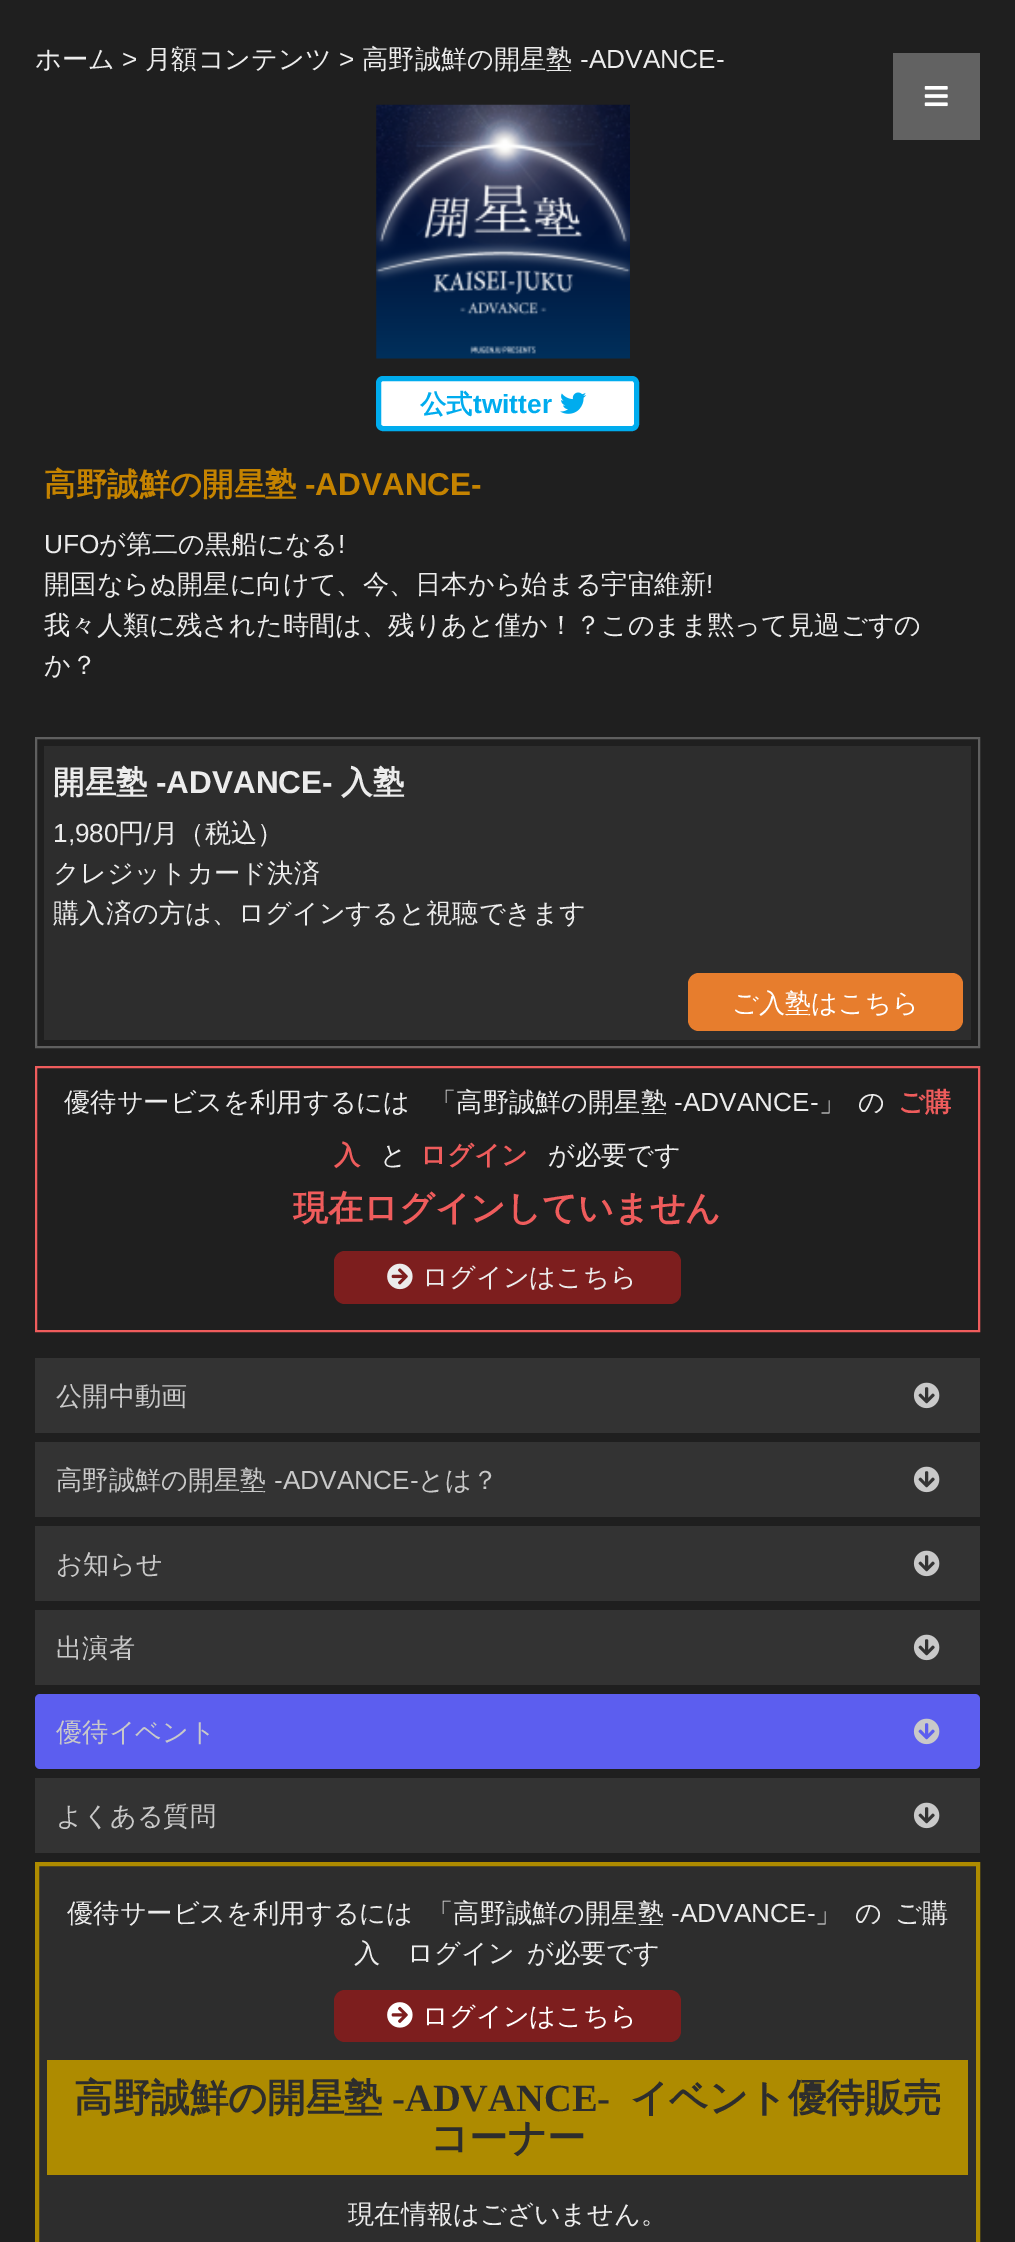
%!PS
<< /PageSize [1015 2242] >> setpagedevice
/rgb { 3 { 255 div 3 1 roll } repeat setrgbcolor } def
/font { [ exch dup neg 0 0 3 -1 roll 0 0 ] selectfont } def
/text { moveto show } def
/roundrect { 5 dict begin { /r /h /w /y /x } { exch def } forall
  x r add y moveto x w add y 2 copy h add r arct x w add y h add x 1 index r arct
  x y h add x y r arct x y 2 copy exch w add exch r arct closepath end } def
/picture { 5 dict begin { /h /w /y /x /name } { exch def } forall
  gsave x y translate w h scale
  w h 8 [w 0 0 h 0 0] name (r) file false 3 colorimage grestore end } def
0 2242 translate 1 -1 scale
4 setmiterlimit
31 31 31 rgb
0 0 1015 2242 rectfill
(img_01.rgb) 376 104 254 255 picture
255 255 255 rgb
378.5 378.5 258 50 4.5 roundrect gsave fill grestore
0 172 238 rgb
5 setlinewidth
stroke
(img_02.rgb) 560 392 27 22 picture
95 95 95 rgb
2 setlinewidth
36 738 943 309 rectstroke
45 45 45 rgb
44 746 927 294 rectfill
231 125 45 rgb
688 973 275 58 11 roundrect fill
239 92 92 rgb
36 1067 943 264 rectstroke
125 30 30 rgb
334 1251 347 53 11 roundrect fill
(img_03.rgb) 387 1263 26 27 picture
51 51 51 rgb
35 1358 945 75 rectfill
(img_04.rgb) 913 1382 27 27 picture
35 1442 945 75 rectfill
(img_04.rgb) 913 1466 27 27 picture
35 1526 945 75 rectfill
(img_04.rgb) 913 1550 27 27 picture
35 1610 945 75 rectfill
(img_04.rgb) 913 1634 27 27 picture
92 94 239 rgb
35 1694 945 75 5 roundrect fill
(img_05.rgb) 913 1718 27 27 picture
51 51 51 rgb
35 1778 945 75 rectfill
(img_04.rgb) 913 1802 27 27 picture
45 45 45 rgb
37 1864 moveto 941 0 rlineto 0 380 rlineto -941 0 rlineto closepath gsave fill grestore
174 139 0 rgb
4 setlinewidth
stroke
125 30 30 rgb
334 1990 347 52 11 roundrect fill
(img_06.rgb) 387 2002 26 26 picture
174 139 0 rgb
47 2060 921 115 rectfill
98 98 98 rgb
893 53 87 87 rectfill
(img_07.rgb) 924 86 24 21 picture
/WenQuanYiZenHei-Medium 26.25 font
236 236 236 rgb
(ホーム) 35 68 text
/LiberationSans-Regular 26.25 font
(>) 122 68 text
/WenQuanYiZenHei-Medium 26.25 font
(月額コンテンツ) 145 68 text
/LiberationSans-Regular 26.25 font
(>) 339 68 text
/WenQuanYiZenHei-Medium 26.25 font
(高野誠鮮の開星塾) 362 68 text
/LiberationSans-Regular 26.25 font
(-ADVANCE-) 580 68 text
/WenQuanYiZenHei-Bold 26.25 font
0 172 238 rgb
(公式) 420 413 text
/LiberationSans-Bold 26.25 font
(twitter) 473 413 text
/WenQuanYiZenHei-Bold 31.5 font
197 131 0 rgb
(高野誠鮮の開星塾) 44 495 text
/LiberationSans-Bold 31.5 font
(-ADVANCE-) 305 495 text
/LiberationSans-Regular 26.25 font
236 236 236 rgb
(UFO) 44 553 text
/WenQuanYiZenHei-Medium 26.25 font
(が第二の黒船になる) 99 553 text
/LiberationSans-Regular 26.25 font
(!) 338 553 text
/WenQuanYiZenHei-Medium 26.25 font
(開国ならぬ開星に向けて、今、日本から始まる宇宙維新) 44 593 text
/LiberationSans-Regular 26.25 font
(!) 706 593 text
/WenQuanYiZenHei-Medium 26.25 font
(我々人類に残された時間は、残りあと僅か！？このまま黙って見過ごすの) 44 634 text
(か？) 44 674 text
/WenQuanYiZenHei-Bold 31.5 font
(開星塾) 53 793 text
/LiberationSans-Bold 31.5 font
(-ADVANCE-) 156 793 text
/WenQuanYiZenHei-Bold 31.5 font
(入塾) 341 793 text
/LiberationSans-Regular 26.25 font
(1,980) 53 842 text
/WenQuanYiZenHei-Medium 26.25 font
(円) 118 842 text
/LiberationSans-Regular 26.25 font
(/) 144 842 text
/WenQuanYiZenHei-Medium 26.25 font
(月（税込）) 152 842 text
(クレジットカード決済) 53 882 text
(購入済の方は、ログインすると視聴できます) 53 922 text
255 255 255 rgb
(ご入塾はこちら) 732 1012 text
236 236 236 rgb
(優待サービスを利用するには) 64 1111 text
(「高野誠鮮の開星塾) 430 1111 text
/LiberationSans-Regular 26.25 font
(-ADVANCE-) 674 1111 text
/WenQuanYiZenHei-Medium 26.25 font
(」) 819 1111 text
(の) 858 1111 text
/WenQuanYiZenHei-Bold 26.25 font
239 92 92 rgb
(ご購) 898 1111 text
(入) 334 1164 text
/WenQuanYiZenHei-Medium 26.25 font
236 236 236 rgb
(と) 380 1164 text
/WenQuanYiZenHei-Bold 26.25 font
239 92 92 rgb
(ログイン) 420 1164 text
/WenQuanYiZenHei-Medium 26.25 font
236 236 236 rgb
(が必要です) 548 1164 text
/WenQuanYiZenHei-Bold 35 font
239 92 92 rgb
(現在ログインしていません) 293 1220 text
/WenQuanYiZenHei-Medium 26.25 font
236 236 236 rgb
(ログインはこちら) 422 1286 text
201 201 201 rgb
(公開中動画) 56 1405 text
(高野誠鮮の開星塾) 56 1489 text
/LiberationSans-Regular 26.25 font
(-ADVANCE-) 274 1489 text
/WenQuanYiZenHei-Medium 26.25 font
(とは？) 418 1489 text
(お知らせ) 56 1573 text
(出演者) 56 1657 text
(優待イベント) 56 1741 text
(よくある質問) 56 1825 text
236 236 236 rgb
(優待サービスを利用するには) 67 1922 text
(「高野誠鮮の開星塾) 427 1922 text
/LiberationSans-Regular 26.25 font
(-ADVANCE-) 671 1922 text
/WenQuanYiZenHei-Medium 26.25 font
(」) 815 1922 text
(の) 855 1922 text
(ご購) 895 1922 text
(入) 354 1962 text
(ログイン) 407 1962 text
(が必要です) 527 1962 text
255 255 255 rgb
(ログインはこちら) 422 2025 text
/WenQuanYiZenHei-Bold 38.5 font
45 45 45 rgb
(高野誠鮮の開星塾) 74 2111 text
/LiberationSerif-Bold 38.5 font
(-ADVANCE-) 392 2111 text
/WenQuanYiZenHei-Bold 38.5 font
(イベント優待販売) 630 2111 text
(コーナー) 430 2151 text
/WenQuanYiZenHei-Medium 26.25 font
236 236 236 rgb
(現在情報はございません。) 348 2223 text
showpage
